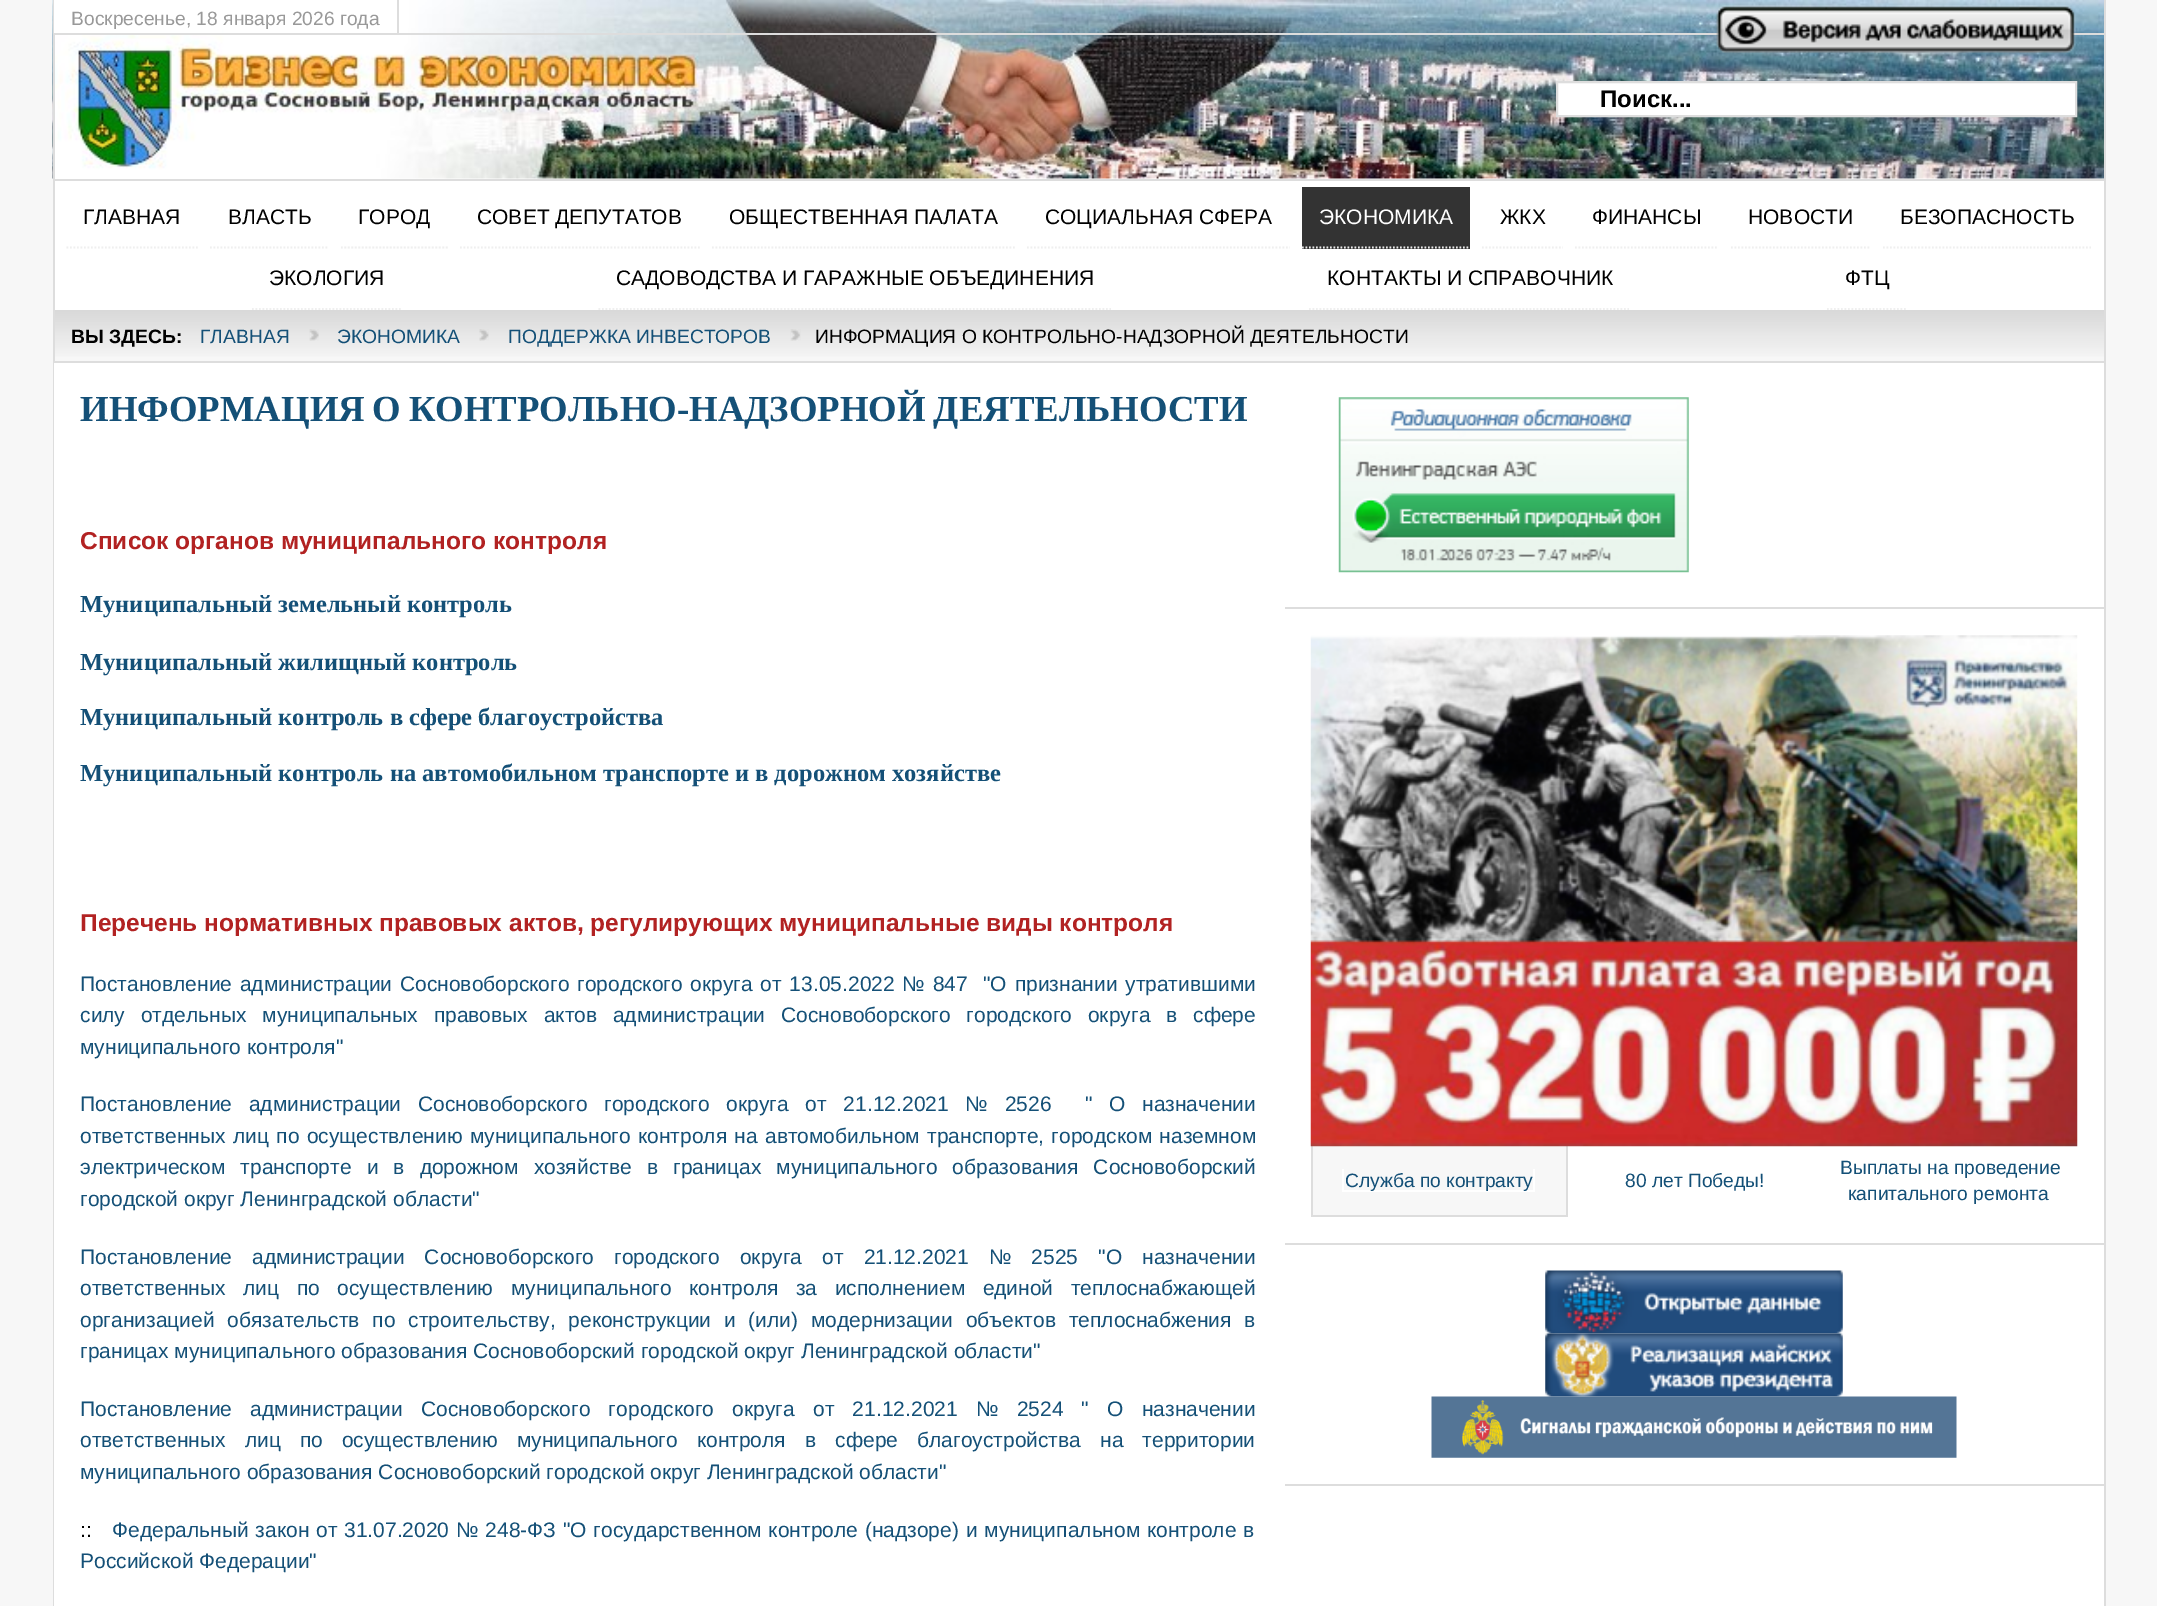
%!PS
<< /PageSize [2157 1606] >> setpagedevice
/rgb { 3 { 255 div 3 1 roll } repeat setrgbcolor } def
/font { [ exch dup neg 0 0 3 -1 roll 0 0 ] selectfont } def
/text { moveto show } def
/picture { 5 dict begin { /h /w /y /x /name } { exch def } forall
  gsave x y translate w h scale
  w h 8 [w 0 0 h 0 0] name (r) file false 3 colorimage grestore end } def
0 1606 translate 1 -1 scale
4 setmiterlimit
247 247 247 rgb
0 0 2157 1606 rectfill
255 255 255 rgb
55 178 2049 1 rectfill
(img_01.rgb) 52 0 2052 179 picture
221 221 221 rgb
53 0 2 179 rectfill
54 33 2050 2 rectfill
255 255 255 rgb
54 0 168 33 rectfill
221 221 221 rgb
397 0 2 33 rectfill
(img_02.rgb) 1716 5 360 50 picture
255 255 255 rgb
1557 82 moveto 519 0 rlineto 0 34 rlineto -519 0 rlineto closepath gsave fill grestore
221 221 221 rgb
2 setlinewidth
stroke
255 255 255 rgb
55 181 2049 129 rectfill
221 221 221 rgb
53 179 2052 2 rectfill
2104 0 2 310 rectfill
53 179 2 131 rectfill
239 239 239 rgb
1.8 setlinewidth
[1.75 1.75] 0 setdash
66.5 247.5 moveto 131.5 0 rlineto stroke
210 247.5 moveto 119 0 rlineto stroke
341 247.5 moveto 107 0 rlineto stroke
460 247.5 moveto 240 0 rlineto stroke
712 247.5 moveto 303 0 rlineto stroke
1027 247.5 moveto 263 0 rlineto stroke
51 51 51 rgb
1302 187 168 62 rectfill
239 239 239 rgb
1302 247.5 moveto 168 0 rlineto stroke
1482 247.5 moveto 81 0 rlineto stroke
1575 247.5 moveto 143.5 0 rlineto stroke
1731 247.5 moveto 140 0 rlineto stroke
1883 247.5 moveto 208 0 rlineto stroke
252 309 moveto 149 0 rlineto stroke
598.5 309 moveto 512.5 0 rlineto stroke
1309 309 moveto 320 0 rlineto stroke
1827 309 moveto 80.5 0 rlineto stroke
gsave 55 310 moveto 2049 0 rlineto 0 47 rlineto -2049 0 rlineto closepath clip newpath
<< /ShadingType 2 /ColorSpace /DeviceRGB /Coords [1079 310 1079 361] /Extend [true true] /Function << /FunctionType 3 /Domain [0 1] /Functions [<< /FunctionType 2 /Domain [0 1] /C0 [0.851 0.851 0.851] /C1 [0.878 0.878 0.878] /N 1 >> << /FunctionType 2 /Domain [0 1] /C0 [0.878 0.878 0.878] /C1 [0.91 0.91 0.91] /N 1 >> << /FunctionType 2 /Domain [0 1] /C0 [0.91 0.91 0.91] /C1 [0.937 0.937 0.937] /N 1 >> << /FunctionType 2 /Domain [0 1] /C0 [0.937 0.937 0.937] /C1 [0.969 0.969 0.969] /N 1 >>] /Bounds [0.25 0.5 0.75] /Encode [0 1 0 1 0 1 0 1] >> >> shfill grestore
221 221 221 rgb
2104 310 2 1296 rectfill
53 362 1 1244 rectfill
53 361 2052 2 rectfill
53 310 2 52 rectfill
(img_03.rgb) 309 329 10 12 picture
(img_04.rgb) 479 329 10 12 picture
(img_05.rgb) 790 329 11 12 picture
255 255 255 rgb
54 363 2050 1243 rectfill
221 221 221 rgb
1285 607 819 2 rectfill
(img_06.rgb) 1338 397 351 176 picture
1285 1243 819 2 rectfill
247 247 247 rgb
1313 1146 253 69 rectfill
221 221 221 rgb
1566 1145 2 71 rectfill
1311 1215 257 2 rectfill
1311 1145 2 71 rectfill
(img_07.rgb) 1310 635 768 512 picture
255 255 255 rgb
1533 1169 2 23 rectfill
1342 1190 193 2 rectfill
1342 1169 2 23 rectfill
221 221 221 rgb
1285 1484 819 2 rectfill
(img_08.rgb) 1545 1270 298 64 picture
(img_09.rgb) 1545 1333 298 64 picture
(img_10.rgb) 1431 1396 526 62 picture
/LiberationSans-Regular 19.25 font
153 153 153 rgb
(Воскресенье, 18 января 2026 года) 71 25 text
/LiberationSans-Bold 24 font
0 0 0 rgb
(Поиск...) 1600 107 text
/LiberationSans-Regular 21 font
(ГЛАВНАЯ) 83 224 text
(ВЛАСТЬ) 228 224 text
(ГОРОД) 358 224 text
(СОВЕТ ДЕПУТАТОВ) 477 224 text
(ОБЩЕСТВЕННАЯ ПАЛАТА) 729 224 text
(СОЦИАЛЬНАЯ СФЕРА) 1045 224 text
255 255 255 rgb
(ЭКОНОМИКА) 1319 224 text
0 0 0 rgb
(ЖКХ) 1500 224 text
(ФИНАНСЫ) 1592 224 text
(НОВОСТИ) 1748 224 text
(БЕЗОПАСНОСТЬ) 1900 224 text
(ЭКОЛОГИЯ) 269 285 text
(САДОВОДСТВА И ГАРАЖНЫЕ ОБЪЕДИНЕНИЯ) 616 285 text
(КОНТАКТЫ И СПРАВОЧНИК) 1327 285 text
(ФТЦ) 1845 285 text
/LiberationSans-Bold 19.3 font
(ВЫ ЗДЕСЬ:) 71 343 text
/LiberationSans-Regular 19.3 font
20 80 119 rgb
(ГЛАВНАЯ) 200 343 text
(ЭКОНОМИКА) 337 343 text
(ПОДДЕРЖКА ИНВЕСТОРОВ) 508 343 text
0 0 0 rgb
(ИНФОРМАЦИЯ О КОНТРОЛЬНО-НАДЗОРНОЙ ДЕЯТЕЛЬНОСТИ) 815 343 text
/LiberationSerif-Bold 36.75 font
20 80 119 rgb
80 421 moveto -1.5 0 32 (ИНФОРМАЦИЯ О КОНТРОЛЬНО-НАДЗОРНОЙ ДЕЯТЕЛЬНОСТИ) widthshow
/LiberationSans-Bold 24.5 font
178 34 34 rgb
(Список органов муниципального контроля) 80 549 text
/LiberationSerif-Bold 24.5 font
20 80 119 rgb
(Муниципальный земельный контроль) 80 612 text
(Муниципальный жилищный контроль) 80 670 text
(Муниципальный контроль в сфере благоустройства) 80 725 text
(Муниципальный контроль на автомобильном транспорте и в дорожном хозяйстве) 80 781 text
/LiberationSans-Bold 24.5 font
178 34 34 rgb
(Перечень нормативных правовых актов, регулирующих муниципальные виды контроля) 80 931 text
/LiberationSans-Regular 21 font
20 80 119 rgb
80 991 moveto 1.9 0 32 (Постановление администрации Сосновоборского городского округа от 13.05.2022 № 847  "О признании утратившими) widthshow
80 1022 moveto 10 0 32 (силу отдельных муниципальных правовых актов администрации Сосновоборского городского округа в сфере) widthshow
(муниципального контроля") 80 1054 text
80 1111 moveto 10.9 0 32 (Постановление администрации Сосновоборского городского округа от 21.12.2021 № 2526  " О назначении) widthshow
80 1143 moveto 1.5 0 32 (ответственных лиц по осуществлению муниципального контроля на автомобильном транспорте, городском наземном) widthshow
80 1174 moveto 9.25 0 32 (электрическом транспорте и в дорожном хозяйстве в границах муниципального образования Сосновоборский) widthshow
(городской округ Ленинградской области") 80 1206 text
80 1264 moveto 14.25 0 32 (Постановление администрации Сосновоборского городского округа от 21.12.2021 № 2525 "О назначении) widthshow
80 1295 moveto 11.75 0 32 (ответственных лиц по осуществлению муниципального контроля за исполнением единой теплоснабжающей) widthshow
80 1327 moveto 7 0 32 (организацией обязательств по строительству, реконструкции и \(или\) модернизации объектов теплоснабжения в) widthshow
(границах муниципального образования Сосновоборский городской округ Ленинградской области") 80 1358 text
80 1416 moveto 12.4 0 32 (Постановление администрации Сосновоборского городского округа от 21.12.2021 № 2524 " О назначении) widthshow
80 1447 moveto 13.25 0 32 (ответственных лиц по осуществлению муниципального контроля в сфере благоустройства на территории) widthshow
(муниципального образования Сосновоборский городской округ Ленинградской области") 80 1479 text
0 0 0 rgb
(::) 80 1537 text
20 80 119 rgb
112 1537 moveto 1 0 32 (Федеральный закон от 31.07.2020 № 248-ФЗ "О государственном контроле \(надзоре\) и муниципальном контроле в) widthshow
(Российской Федерации") 80 1568 text
/LiberationSans-Regular 19.25 font
(Служба по контракту) 1345 1187 text
(80 лет Победы!) 1625 1187 text
(Выплаты на проведение) 1840 1174 text
(капитального ремонта) 1848 1200 text
showpage
